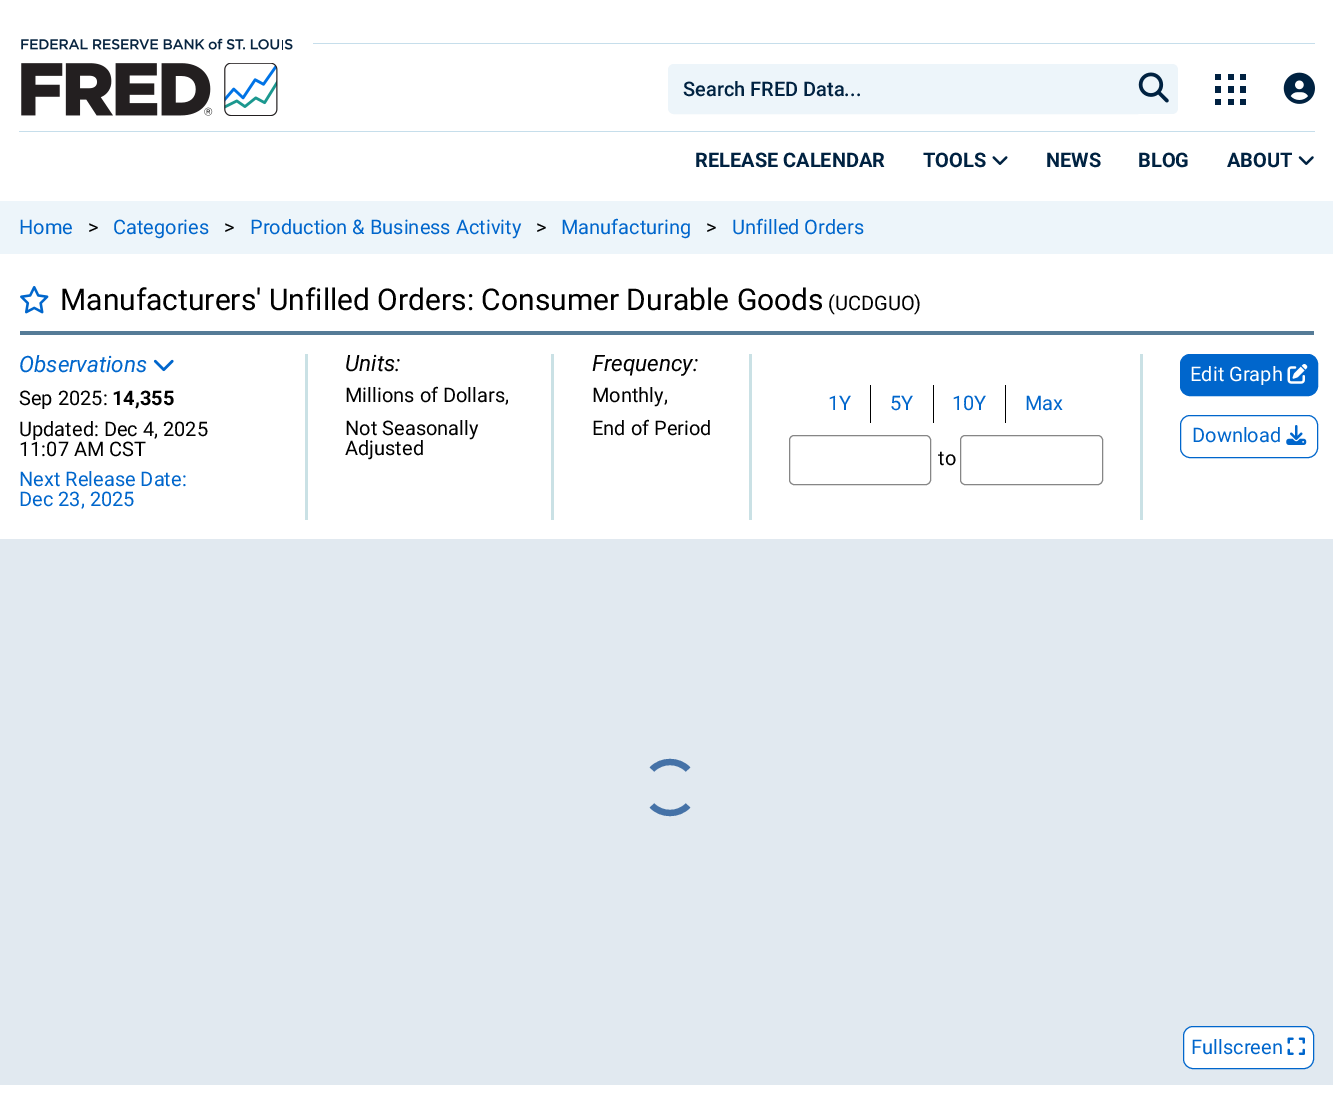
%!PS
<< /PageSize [1333 1101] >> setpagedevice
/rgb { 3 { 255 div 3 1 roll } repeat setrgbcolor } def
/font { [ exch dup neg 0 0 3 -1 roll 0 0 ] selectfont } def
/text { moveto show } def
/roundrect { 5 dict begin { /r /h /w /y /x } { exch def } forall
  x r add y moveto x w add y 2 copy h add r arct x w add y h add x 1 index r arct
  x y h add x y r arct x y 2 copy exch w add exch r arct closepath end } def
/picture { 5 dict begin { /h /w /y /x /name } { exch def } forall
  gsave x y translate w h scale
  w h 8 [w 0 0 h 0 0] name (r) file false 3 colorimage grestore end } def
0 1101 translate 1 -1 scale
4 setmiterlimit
255 255 255 rgb
0 0 1333 1101 rectfill
(img_01.rgb) 21 38 272 12 picture
198 222 235 rgb
313 43 1002 1 rectfill
(img_02.rgb) 21 63 257 53 picture
237 245 250 rgb
1130 64 moveto 42 0 rlineto 3.5 0 6 2.5 6 6 rcurveto 0 38 rlineto 0 3.5 -2.5 6 -6 6 rcurveto -42 0 rlineto closepath fill
255 255 255 rgb
661 64 470 50 5 roundrect fill
237 245 250 rgb
674 65.5 moveto 462.5 0 rlineto 0 47 rlineto -462.5 0 rlineto -2.5 0 -4.5 -2 -4.5 -4.5 rcurveto 0 -38 rlineto 0 -2.5 2 -4.5 4.5 -4.5 rcurveto closepath gsave fill grestore
3 setlinewidth
stroke
(img_03.rgb) 1138 72 31 31 picture
(img_04.rgb) 1215 74 31 31 picture
(img_05.rgb) 1283 72 32 32 picture
198 222 235 rgb
19 131 1296 1 rectfill
(img_06.rgb) 992 156 16 9 picture
(img_07.rgb) 1298 156 16 9 picture
237 245 250 rgb
0 201 1333 53 rectfill
(img_08.rgb) 20 286 29 28 picture
85 123 151 rgb
20 331 1294 4 rectfill
202 225 229 rgb
305 354 3 166 rectfill
(img_09.rgb) 153 359 21 13 picture
551 354 3 166 rectfill
1140 354 3 166 rectfill
749 354 3 166 rectfill
0 0 0 rgb
870 385 136 38 rectfill
255 255 255 rgb
871 385 62 38 rectfill
934 385 71 38 rectfill
134 134 134 rgb
1 setlinewidth
789.5 435.5 141 49 4.5 roundrect stroke
960.5 435.5 142 49 4.5 roundrect stroke
0 102 204 rgb
1180.5 354.5 137 41 9.5 roundrect gsave fill grestore
stroke
(img_10.rgb) 1287 364 21 20 picture
1180.5 415.5 137 42 9.5 roundrect stroke
(img_11.rgb) 1286 425 21 20 picture
225 233 240 rgb
0 539 1333 546 rectfill
69 114 167 rgb
6.2 setlinewidth
652 769.5 moveto 9.5 -10 26.5 -10 36 0 rcurveto 688 805.5 moveto -9.5 10 -26.5 10 -36 0 rcurveto stroke
255 255 255 rgb
1183.5 1026.5 130 42 9.5 roundrect gsave fill grestore
0 102 204 rgb
1 setlinewidth
stroke
(img_12.rgb) 1287 1037 18 18 picture
/Roboto-Medium 20 font
0 34 65 rgb
(Search FRED Data...) 683 96 text
/Roboto-Bold 20 font
(RELEASE CALENDAR) 695 167 text
(TOOLS) 923 167 text
(NEWS) 1046 167 text
(BLOG) 1138 167 text
(ABOUT) 1227 167 text
/Roboto-Regular 20 font
0 102 204 rgb
(Home) 19 234 text
0 0 0 rgb
(>) 88 234 text
0 102 204 rgb
(Categories) 113 234 text
0 0 0 rgb
(>) 224 234 text
0 102 204 rgb
(Production & Business Activity) 250 234 text
0 0 0 rgb
(>) 536 234 text
0 102 204 rgb
(Manufacturing) 561 234 text
0 0 0 rgb
(>) 706 234 text
0 102 204 rgb
(Unfilled Orders) 732 234 text
/Roboto-Regular 30 font
0 0 0 rgb
(Manufacturers' Unfilled Orders: Consumer Durable Goods) 60 310 text
/Roboto-Regular 20 font
(\(UCDGUO\)) 828 310 text
/Roboto-Italic 22.5 font
0 102 204 rgb
(Observations) 19 372 text
/Roboto-Regular 20 font
0 0 0 rgb
(Sep 2025:) 19 405 text
/Roboto-Bold 20 font
(14,355) 112 405 text
/Roboto-Regular 20 font
(Updated: Dec 4, 2025) 19 436 text
(11:07 AM CST) 19 456 text
0 102 204 rgb
(Next Release Date:) 19 486 text
(Dec 23, 2025) 19 506 text
/Roboto-Italic 22.5 font
0 0 0 rgb
(Units:) 345 371 text
/Roboto-Regular 20 font
(Millions of Dollars,) 345 402 text
(Not Seasonally) 345 435 text
(Adjusted) 345 455 text
/Roboto-Italic 22.5 font
(Frequency:) 592 371 text
/Roboto-Regular 20 font
(Monthly,) 592 402 text
(End of Period) 592 435 text
0 102 204 rgb
(1Y) 828 410 text
(5Y) 890 410 text
(10Y) 952 410 text
(Max) 1025 410 text
0 0 0 rgb
(to) 938 465 text
255 255 255 rgb
(Edit Graph) 1190 381 text
0 102 204 rgb
(Download) 1192 442 text
(Fullscreen) 1191 1054 text
showpage
